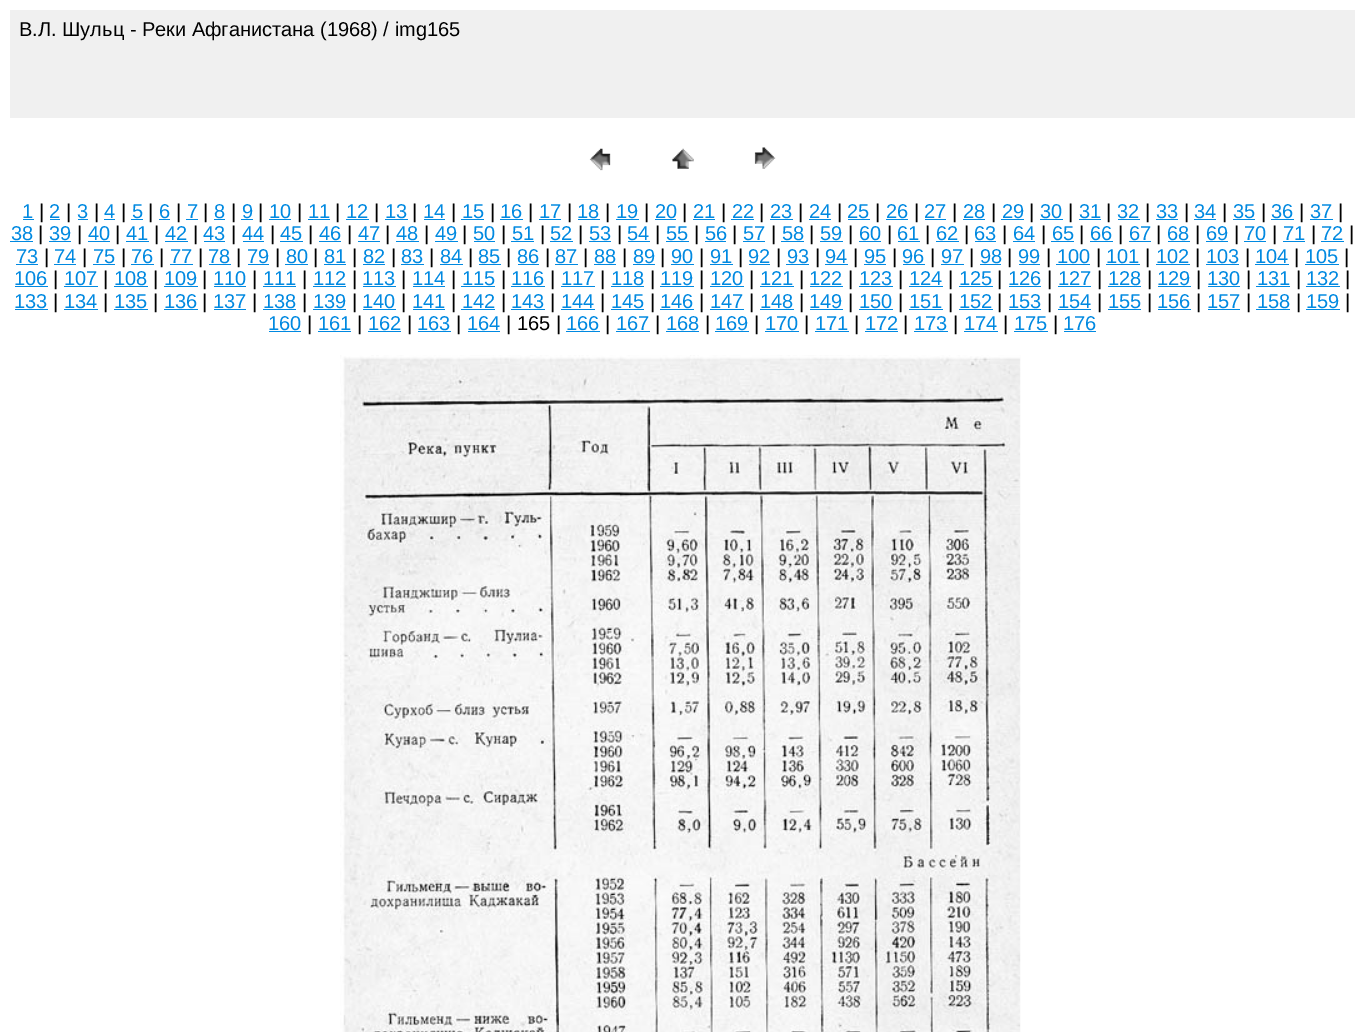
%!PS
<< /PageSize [1364 1032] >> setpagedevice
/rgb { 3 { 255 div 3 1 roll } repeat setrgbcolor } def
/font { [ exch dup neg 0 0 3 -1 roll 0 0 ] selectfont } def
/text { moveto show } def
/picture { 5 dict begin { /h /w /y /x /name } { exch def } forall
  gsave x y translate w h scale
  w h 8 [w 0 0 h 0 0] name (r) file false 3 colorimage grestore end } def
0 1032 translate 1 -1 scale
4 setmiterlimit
255 255 255 rgb
0 0 1364 1032 rectfill
240 240 240 rgb
10 10 1345 108 rectfill
(img_01.rgb) 589 148 22 23 picture
(img_02.rgb) 672 148 22 21 picture
(img_03.rgb) 754 147 22 22 picture
0 137 225 rgb
23 219 11 1 rectfill
50 219 10 1 rectfill
78 219 10 1 rectfill
104 219 11 1 rectfill
131 219 12 1 rectfill
159 219 11 1 rectfill
186 219 12 1 rectfill
214 219 11 1 rectfill
241 219 12 1 rectfill
269 219 22 1 rectfill
308 219 22 1 rectfill
346 219 23 1 rectfill
385 219 23 1 rectfill
424 219 21 1 rectfill
461 219 23 1 rectfill
500 219 23 1 rectfill
539 219 22 1 rectfill
578 219 22 1 rectfill
616 219 23 1 rectfill
655 219 21 1 rectfill
693 219 22 1 rectfill
731 219 23 1 rectfill
770 219 23 1 rectfill
809 219 22 1 rectfill
848 219 22 1 rectfill
886 219 22 1 rectfill
925 219 21 1 rectfill
963 219 22 1 rectfill
1001 219 23 1 rectfill
1040 219 23 1 rectfill
1079 219 22 1 rectfill
1118 219 22 1 rectfill
1156 219 22 1 rectfill
1194 219 22 1 rectfill
1233 219 22 1 rectfill
1271 219 23 1 rectfill
1310 219 23 1 rectfill
10 241 23 1 rectfill
49 241 22 1 rectfill
88 241 22 1 rectfill
126 241 23 1 rectfill
165 241 23 1 rectfill
204 241 21 1 rectfill
243 241 21 1 rectfill
280 241 23 1 rectfill
319 241 22 1 rectfill
358 241 22 1 rectfill
396 241 23 1 rectfill
435 241 23 1 rectfill
474 241 21 1 rectfill
511 241 23 1 rectfill
550 241 23 1 rectfill
589 241 22 1 rectfill
628 241 22 1 rectfill
666 241 23 1 rectfill
705 241 21 1 rectfill
743 241 22 1 rectfill
781 241 23 1 rectfill
820 241 23 1 rectfill
859 241 22 1 rectfill
898 241 22 1 rectfill
936 241 23 1 rectfill
975 241 21 1 rectfill
1013 241 22 1 rectfill
1051 241 23 1 rectfill
1090 241 23 1 rectfill
1129 241 22 1 rectfill
1168 241 22 1 rectfill
1206 241 22 1 rectfill
1244 241 22 1 rectfill
1283 241 22 1 rectfill
1321 241 23 1 rectfill
16 264 22 1 rectfill
54 264 22 1 rectfill
93 264 22 1 rectfill
131 264 23 1 rectfill
170 264 23 1 rectfill
209 264 22 1 rectfill
248 264 21 1 rectfill
285 264 23 1 rectfill
324 264 22 1 rectfill
363 264 22 1 rectfill
401 264 23 1 rectfill
440 264 23 1 rectfill
479 264 22 1 rectfill
518 264 21 1 rectfill
555 264 23 1 rectfill
594 264 22 1 rectfill
633 264 22 1 rectfill
671 264 23 1 rectfill
710 264 23 1 rectfill
749 264 21 1 rectfill
786 264 23 1 rectfill
825 264 23 1 rectfill
864 264 22 1 rectfill
903 264 22 1 rectfill
941 264 23 1 rectfill
980 264 21 1 rectfill
1019 264 21 1 rectfill
1056 264 34 1 rectfill
1106 264 34 1 rectfill
1156 264 34 1 rectfill
1206 264 33 1 rectfill
1255 264 34 1 rectfill
1305 264 34 1 rectfill
15 286 33 1 rectfill
64 286 34 1 rectfill
114 286 34 1 rectfill
164 286 34 1 rectfill
214 286 32 1 rectfill
263 286 33 1 rectfill
313 286 33 1 rectfill
363 286 33 1 rectfill
413 286 32 1 rectfill
461 286 34 1 rectfill
511 286 34 1 rectfill
561 286 34 1 rectfill
611 286 33 1 rectfill
660 286 34 1 rectfill
710 286 34 1 rectfill
760 286 34 1 rectfill
810 286 33 1 rectfill
859 286 34 1 rectfill
909 286 34 1 rectfill
959 286 34 1 rectfill
1009 286 32 1 rectfill
1058 286 33 1 rectfill
1108 286 33 1 rectfill
1158 286 33 1 rectfill
1208 286 32 1 rectfill
1256 286 34 1 rectfill
1306 286 34 1 rectfill
15 309 33 1 rectfill
64 309 34 1 rectfill
114 309 34 1 rectfill
164 309 34 1 rectfill
214 309 32 1 rectfill
263 309 33 1 rectfill
313 309 33 1 rectfill
363 309 33 1 rectfill
413 309 32 1 rectfill
461 309 34 1 rectfill
511 309 34 1 rectfill
561 309 34 1 rectfill
611 309 33 1 rectfill
660 309 34 1 rectfill
710 309 34 1 rectfill
760 309 34 1 rectfill
810 309 33 1 rectfill
859 309 34 1 rectfill
909 309 34 1 rectfill
959 309 34 1 rectfill
1009 309 32 1 rectfill
1058 309 33 1 rectfill
1108 309 33 1 rectfill
1158 309 33 1 rectfill
1208 309 32 1 rectfill
1256 309 34 1 rectfill
1306 309 34 1 rectfill
269 331 32 1 rectfill
318 331 33 1 rectfill
368 331 33 1 rectfill
418 331 33 1 rectfill
468 331 32 1 rectfill
566 331 34 1 rectfill
616 331 34 1 rectfill
666 331 33 1 rectfill
715 331 34 1 rectfill
765 331 34 1 rectfill
815 331 34 1 rectfill
865 331 33 1 rectfill
914 331 34 1 rectfill
964 331 34 1 rectfill
1014 331 34 1 rectfill
1064 331 32 1 rectfill
(img_04.rgb) 340 355 681 677 picture
/LiberationSans-Regular 20 font
0 0 0 rgb
(В.Л. Шульц - Реки Афганистана \(1968\) / img165) 19 36 text
0 137 225 rgb
(1) 22 218 text
0 0 0 rgb
(|) 39 218 text
0 137 225 rgb
(2) 49 218 text
0 0 0 rgb
(|) 66 218 text
0 137 225 rgb
(3) 77 218 text
0 0 0 rgb
(|) 94 218 text
0 137 225 rgb
(4) 104 218 text
0 0 0 rgb
(|) 121 218 text
0 137 225 rgb
(5) 132 218 text
0 0 0 rgb
(|) 148 218 text
0 137 225 rgb
(6) 159 218 text
0 0 0 rgb
(|) 176 218 text
0 137 225 rgb
(7) 187 218 text
0 0 0 rgb
(|) 203 218 text
0 137 225 rgb
(8) 214 218 text
0 0 0 rgb
(|) 231 218 text
0 137 225 rgb
(9) 242 218 text
0 0 0 rgb
(|) 258 218 text
0 137 225 rgb
(10) 269 218 text
0 0 0 rgb
(|) 297 218 text
0 137 225 rgb
(11) 308 218 text
0 0 0 rgb
(|) 335 218 text
0 137 225 rgb
(12) 346 218 text
0 0 0 rgb
(|) 374 218 text
0 137 225 rgb
(13) 385 218 text
0 0 0 rgb
(|) 412 218 text
0 137 225 rgb
(14) 423 218 text
0 0 0 rgb
(|) 451 218 text
0 137 225 rgb
(15) 462 218 text
0 0 0 rgb
(|) 490 218 text
0 137 225 rgb
(16) 500 218 text
0 0 0 rgb
(|) 528 218 text
0 137 225 rgb
(17) 539 218 text
0 0 0 rgb
(|) 567 218 text
0 137 225 rgb
(18) 577 218 text
0 0 0 rgb
(|) 605 218 text
0 137 225 rgb
(19) 616 218 text
0 0 0 rgb
(|) 644 218 text
0 137 225 rgb
(20) 655 218 text
0 0 0 rgb
(|) 682 218 text
0 137 225 rgb
(21) 693 218 text
0 0 0 rgb
(|) 721 218 text
0 137 225 rgb
(22) 732 218 text
0 0 0 rgb
(|) 759 218 text
0 137 225 rgb
(23) 770 218 text
0 0 0 rgb
(|) 798 218 text
0 137 225 rgb
(24) 809 218 text
0 0 0 rgb
(|) 837 218 text
0 137 225 rgb
(25) 847 218 text
0 0 0 rgb
(|) 875 218 text
0 137 225 rgb
(26) 886 218 text
0 0 0 rgb
(|) 914 218 text
0 137 225 rgb
(27) 924 218 text
0 0 0 rgb
(|) 952 218 text
0 137 225 rgb
(28) 963 218 text
0 0 0 rgb
(|) 991 218 text
0 137 225 rgb
(29) 1002 218 text
0 0 0 rgb
(|) 1029 218 text
0 137 225 rgb
(30) 1040 218 text
0 0 0 rgb
(|) 1068 218 text
0 137 225 rgb
(31) 1079 218 text
0 0 0 rgb
(|) 1106 218 text
0 137 225 rgb
(32) 1117 218 text
0 0 0 rgb
(|) 1145 218 text
0 137 225 rgb
(33) 1156 218 text
0 0 0 rgb
(|) 1184 218 text
0 137 225 rgb
(34) 1194 218 text
0 0 0 rgb
(|) 1222 218 text
0 137 225 rgb
(35) 1233 218 text
0 0 0 rgb
(|) 1261 218 text
0 137 225 rgb
(36) 1271 218 text
0 0 0 rgb
(|) 1299 218 text
0 137 225 rgb
(37) 1310 218 text
0 0 0 rgb
(|) 1338 218 text
0 137 225 rgb
(38) 11 240 text
0 0 0 rgb
(|) 38 240 text
0 137 225 rgb
(39) 49 240 text
0 0 0 rgb
(|) 77 240 text
0 137 225 rgb
(40) 88 240 text
0 0 0 rgb
(|) 115 240 text
0 137 225 rgb
(41) 126 240 text
0 0 0 rgb
(|) 154 240 text
0 137 225 rgb
(42) 165 240 text
0 0 0 rgb
(|) 193 240 text
0 137 225 rgb
(43) 203 240 text
0 0 0 rgb
(|) 231 240 text
0 137 225 rgb
(44) 242 240 text
0 0 0 rgb
(|) 270 240 text
0 137 225 rgb
(45) 280 240 text
0 0 0 rgb
(|) 308 240 text
0 137 225 rgb
(46) 319 240 text
0 0 0 rgb
(|) 347 240 text
0 137 225 rgb
(47) 358 240 text
0 0 0 rgb
(|) 385 240 text
0 137 225 rgb
(48) 396 240 text
0 0 0 rgb
(|) 424 240 text
0 137 225 rgb
(49) 435 240 text
0 0 0 rgb
(|) 462 240 text
0 137 225 rgb
(50) 473 240 text
0 0 0 rgb
(|) 501 240 text
0 137 225 rgb
(51) 512 240 text
0 0 0 rgb
(|) 540 240 text
0 137 225 rgb
(52) 550 240 text
0 0 0 rgb
(|) 578 240 text
0 137 225 rgb
(53) 589 240 text
0 0 0 rgb
(|) 617 240 text
0 137 225 rgb
(54) 627 240 text
0 0 0 rgb
(|) 655 240 text
0 137 225 rgb
(55) 666 240 text
0 0 0 rgb
(|) 694 240 text
0 137 225 rgb
(56) 705 240 text
0 0 0 rgb
(|) 732 240 text
0 137 225 rgb
(57) 743 240 text
0 0 0 rgb
(|) 771 240 text
0 137 225 rgb
(58) 782 240 text
0 0 0 rgb
(|) 809 240 text
0 137 225 rgb
(59) 820 240 text
0 0 0 rgb
(|) 848 240 text
0 137 225 rgb
(60) 859 240 text
0 0 0 rgb
(|) 887 240 text
0 137 225 rgb
(61) 897 240 text
0 0 0 rgb
(|) 925 240 text
0 137 225 rgb
(62) 936 240 text
0 0 0 rgb
(|) 964 240 text
0 137 225 rgb
(63) 974 240 text
0 0 0 rgb
(|) 1002 240 text
0 137 225 rgb
(64) 1013 240 text
0 0 0 rgb
(|) 1041 240 text
0 137 225 rgb
(65) 1052 240 text
0 0 0 rgb
(|) 1079 240 text
0 137 225 rgb
(66) 1090 240 text
0 0 0 rgb
(|) 1118 240 text
0 137 225 rgb
(67) 1129 240 text
0 0 0 rgb
(|) 1156 240 text
0 137 225 rgb
(68) 1167 240 text
0 0 0 rgb
(|) 1195 240 text
0 137 225 rgb
(69) 1206 240 text
0 0 0 rgb
(|) 1234 240 text
0 137 225 rgb
(70) 1244 240 text
0 0 0 rgb
(|) 1272 240 text
0 137 225 rgb
(71) 1283 240 text
0 0 0 rgb
(|) 1311 240 text
0 137 225 rgb
(72) 1321 240 text
0 0 0 rgb
(|) 1349 240 text
0 137 225 rgb
(73) 16 263 text
0 0 0 rgb
(|) 44 263 text
0 137 225 rgb
(74) 54 263 text
0 0 0 rgb
(|) 82 263 text
0 137 225 rgb
(75) 93 263 text
0 0 0 rgb
(|) 121 263 text
0 137 225 rgb
(76) 131 263 text
0 0 0 rgb
(|) 159 263 text
0 137 225 rgb
(77) 170 263 text
0 0 0 rgb
(|) 198 263 text
0 137 225 rgb
(78) 208 263 text
0 0 0 rgb
(|) 236 263 text
0 137 225 rgb
(79) 247 263 text
0 0 0 rgb
(|) 275 263 text
0 137 225 rgb
(80) 286 263 text
0 0 0 rgb
(|) 313 263 text
0 137 225 rgb
(81) 324 263 text
0 0 0 rgb
(|) 352 263 text
0 137 225 rgb
(82) 363 263 text
0 0 0 rgb
(|) 391 263 text
0 137 225 rgb
(83) 401 263 text
0 0 0 rgb
(|) 429 263 text
0 137 225 rgb
(84) 440 263 text
0 0 0 rgb
(|) 468 263 text
0 137 225 rgb
(85) 478 263 text
0 0 0 rgb
(|) 506 263 text
0 137 225 rgb
(86) 517 263 text
0 0 0 rgb
(|) 545 263 text
0 137 225 rgb
(87) 555 263 text
0 0 0 rgb
(|) 583 263 text
0 137 225 rgb
(88) 594 263 text
0 0 0 rgb
(|) 622 263 text
0 137 225 rgb
(89) 633 263 text
0 0 0 rgb
(|) 660 263 text
0 137 225 rgb
(90) 671 263 text
0 0 0 rgb
(|) 699 263 text
0 137 225 rgb
(91) 710 263 text
0 0 0 rgb
(|) 738 263 text
0 137 225 rgb
(92) 748 263 text
0 0 0 rgb
(|) 776 263 text
0 137 225 rgb
(93) 787 263 text
0 0 0 rgb
(|) 815 263 text
0 137 225 rgb
(94) 825 263 text
0 0 0 rgb
(|) 853 263 text
0 137 225 rgb
(95) 864 263 text
0 0 0 rgb
(|) 892 263 text
0 137 225 rgb
(96) 902 263 text
0 0 0 rgb
(|) 930 263 text
0 137 225 rgb
(97) 941 263 text
0 0 0 rgb
(|) 969 263 text
0 137 225 rgb
(98) 980 263 text
0 0 0 rgb
(|) 1007 263 text
0 137 225 rgb
(99) 1018 263 text
0 0 0 rgb
(|) 1046 263 text
0 137 225 rgb
(100) 1057 263 text
0 0 0 rgb
(|) 1096 263 text
0 137 225 rgb
(101) 1106 263 text
0 0 0 rgb
(|) 1145 263 text
0 137 225 rgb
(102) 1156 263 text
0 0 0 rgb
(|) 1195 263 text
0 137 225 rgb
(103) 1206 263 text
0 0 0 rgb
(|) 1245 263 text
0 137 225 rgb
(104) 1255 263 text
0 0 0 rgb
(|) 1294 263 text
0 137 225 rgb
(105) 1305 263 text
0 0 0 rgb
(|) 1344 263 text
0 137 225 rgb
(106) 14 285 text
0 0 0 rgb
(|) 53 285 text
0 137 225 rgb
(107) 64 285 text
0 0 0 rgb
(|) 103 285 text
0 137 225 rgb
(108) 114 285 text
0 0 0 rgb
(|) 153 285 text
0 137 225 rgb
(109) 164 285 text
0 0 0 rgb
(|) 202 285 text
0 137 225 rgb
(110) 213 285 text
0 0 0 rgb
(|) 252 285 text
0 137 225 rgb
(111) 263 285 text
0 0 0 rgb
(|) 302 285 text
0 137 225 rgb
(112) 313 285 text
0 0 0 rgb
(|) 352 285 text
0 137 225 rgb
(113) 362 285 text
0 0 0 rgb
(|) 401 285 text
0 137 225 rgb
(114) 412 285 text
0 0 0 rgb
(|) 451 285 text
0 137 225 rgb
(115) 462 285 text
0 0 0 rgb
(|) 501 285 text
0 137 225 rgb
(116) 511 285 text
0 0 0 rgb
(|) 550 285 text
0 137 225 rgb
(117) 561 285 text
0 0 0 rgb
(|) 600 285 text
0 137 225 rgb
(118) 611 285 text
0 0 0 rgb
(|) 650 285 text
0 137 225 rgb
(119) 660 285 text
0 0 0 rgb
(|) 699 285 text
0 137 225 rgb
(120) 710 285 text
0 0 0 rgb
(|) 749 285 text
0 137 225 rgb
(121) 760 285 text
0 0 0 rgb
(|) 799 285 text
0 137 225 rgb
(122) 809 285 text
0 0 0 rgb
(|) 848 285 text
0 137 225 rgb
(123) 859 285 text
0 0 0 rgb
(|) 898 285 text
0 137 225 rgb
(124) 909 285 text
0 0 0 rgb
(|) 948 285 text
0 137 225 rgb
(125) 959 285 text
0 0 0 rgb
(|) 997 285 text
0 137 225 rgb
(126) 1008 285 text
0 0 0 rgb
(|) 1047 285 text
0 137 225 rgb
(127) 1058 285 text
0 0 0 rgb
(|) 1097 285 text
0 137 225 rgb
(128) 1108 285 text
0 0 0 rgb
(|) 1147 285 text
0 137 225 rgb
(129) 1157 285 text
0 0 0 rgb
(|) 1196 285 text
0 137 225 rgb
(130) 1207 285 text
0 0 0 rgb
(|) 1246 285 text
0 137 225 rgb
(131) 1257 285 text
0 0 0 rgb
(|) 1296 285 text
0 137 225 rgb
(132) 1306 285 text
0 0 0 rgb
(|) 1345 285 text
0 137 225 rgb
(133) 14 308 text
0 0 0 rgb
(|) 53 308 text
0 137 225 rgb
(134) 64 308 text
0 0 0 rgb
(|) 103 308 text
0 137 225 rgb
(135) 114 308 text
0 0 0 rgb
(|) 153 308 text
0 137 225 rgb
(136) 164 308 text
0 0 0 rgb
(|) 202 308 text
0 137 225 rgb
(137) 213 308 text
0 0 0 rgb
(|) 252 308 text
0 137 225 rgb
(138) 263 308 text
0 0 0 rgb
(|) 302 308 text
0 137 225 rgb
(139) 313 308 text
0 0 0 rgb
(|) 352 308 text
0 137 225 rgb
(140) 362 308 text
0 0 0 rgb
(|) 401 308 text
0 137 225 rgb
(141) 412 308 text
0 0 0 rgb
(|) 451 308 text
0 137 225 rgb
(142) 462 308 text
0 0 0 rgb
(|) 501 308 text
0 137 225 rgb
(143) 511 308 text
0 0 0 rgb
(|) 550 308 text
0 137 225 rgb
(144) 561 308 text
0 0 0 rgb
(|) 600 308 text
0 137 225 rgb
(145) 611 308 text
0 0 0 rgb
(|) 650 308 text
0 137 225 rgb
(146) 660 308 text
0 0 0 rgb
(|) 699 308 text
0 137 225 rgb
(147) 710 308 text
0 0 0 rgb
(|) 749 308 text
0 137 225 rgb
(148) 760 308 text
0 0 0 rgb
(|) 799 308 text
0 137 225 rgb
(149) 809 308 text
0 0 0 rgb
(|) 848 308 text
0 137 225 rgb
(150) 859 308 text
0 0 0 rgb
(|) 898 308 text
0 137 225 rgb
(151) 909 308 text
0 0 0 rgb
(|) 948 308 text
0 137 225 rgb
(152) 959 308 text
0 0 0 rgb
(|) 997 308 text
0 137 225 rgb
(153) 1008 308 text
0 0 0 rgb
(|) 1047 308 text
0 137 225 rgb
(154) 1058 308 text
0 0 0 rgb
(|) 1097 308 text
0 137 225 rgb
(155) 1108 308 text
0 0 0 rgb
(|) 1147 308 text
0 137 225 rgb
(156) 1157 308 text
0 0 0 rgb
(|) 1196 308 text
0 137 225 rgb
(157) 1207 308 text
0 0 0 rgb
(|) 1246 308 text
0 137 225 rgb
(158) 1257 308 text
0 0 0 rgb
(|) 1296 308 text
0 137 225 rgb
(159) 1306 308 text
0 0 0 rgb
(|) 1345 308 text
0 137 225 rgb
(160) 268 330 text
0 0 0 rgb
(|) 307 330 text
0 137 225 rgb
(161) 318 330 text
0 0 0 rgb
(|) 357 330 text
0 137 225 rgb
(162) 368 330 text
0 0 0 rgb
(|) 407 330 text
0 137 225 rgb
(163) 417 330 text
0 0 0 rgb
(|) 456 330 text
0 137 225 rgb
(164) 467 330 text
0 0 0 rgb
(| 165 |) 506 330 text
0 137 225 rgb
(166) 566 330 text
0 0 0 rgb
(|) 605 330 text
0 137 225 rgb
(167) 616 330 text
0 0 0 rgb
(|) 655 330 text
0 137 225 rgb
(168) 666 330 text
0 0 0 rgb
(|) 705 330 text
0 137 225 rgb
(169) 715 330 text
0 0 0 rgb
(|) 754 330 text
0 137 225 rgb
(170) 765 330 text
0 0 0 rgb
(|) 804 330 text
0 137 225 rgb
(171) 815 330 text
0 0 0 rgb
(|) 854 330 text
0 137 225 rgb
(172) 865 330 text
0 0 0 rgb
(|) 903 330 text
0 137 225 rgb
(173) 914 330 text
0 0 0 rgb
(|) 953 330 text
0 137 225 rgb
(174) 964 330 text
0 0 0 rgb
(|) 1003 330 text
0 137 225 rgb
(175) 1014 330 text
0 0 0 rgb
(|) 1053 330 text
0 137 225 rgb
(176) 1063 330 text
showpage
